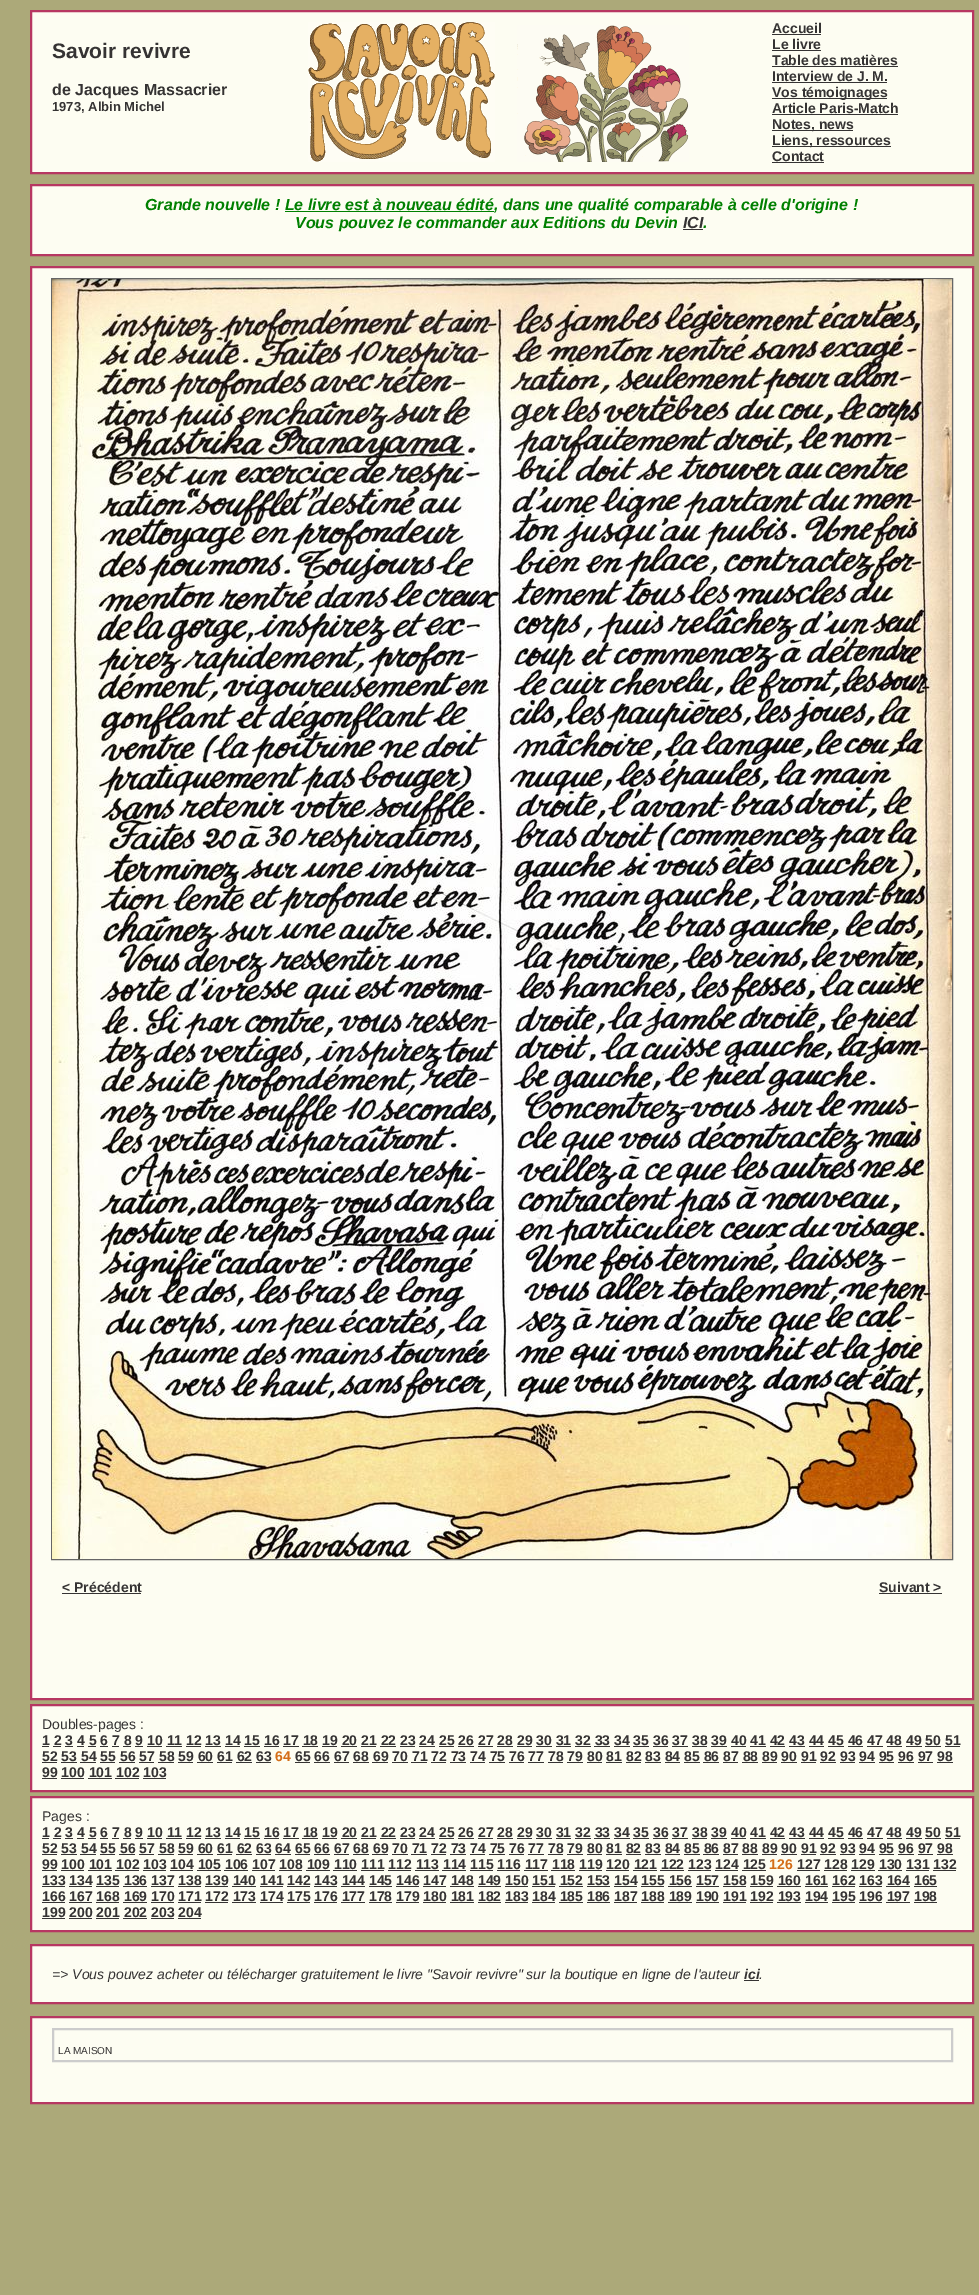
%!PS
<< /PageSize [979 2295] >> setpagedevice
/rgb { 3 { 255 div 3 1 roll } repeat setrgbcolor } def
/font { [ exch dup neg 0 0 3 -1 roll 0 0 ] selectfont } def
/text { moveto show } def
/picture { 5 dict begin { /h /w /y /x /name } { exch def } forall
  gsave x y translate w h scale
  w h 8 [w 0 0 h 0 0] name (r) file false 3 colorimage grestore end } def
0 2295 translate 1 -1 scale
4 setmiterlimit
172 169 121 rgb
0 0 979 2295 rectfill
253 253 242 rgb
31 11 moveto 942 0 rlineto 0 162 rlineto -942 0 rlineto closepath gsave fill grestore
183 55 98 rgb
2 setlinewidth
stroke
(img_01.rgb) 308 22 187 140 picture
(img_02.rgb) 517 25 172 137 picture
53 51 51 rgb
772 34 49 1 rectfill
772 50 49 1 rectfill
772 66 126 1 rectfill
772 82 115 1 rectfill
772 98 115 1 rectfill
772 114 126 1 rectfill
772 130 81 1 rectfill
772 146 119 1 rectfill
772 162 52 1 rectfill
253 253 242 rgb
31 185 moveto 942 0 rlineto 0 70 rlineto -942 0 rlineto closepath gsave fill grestore
183 55 98 rgb
stroke
0 128 0 rgb
285 211 209 1 rectfill
53 51 51 rgb
683 229 20 1 rectfill
253 253 242 rgb
31 267 moveto 942 0 rlineto 0 1432 rlineto -942 0 rlineto closepath gsave fill grestore
183 55 98 rgb
stroke
102 102 102 rgb
1 setlinewidth
51.5 278.5 901 1281 rectstroke
(img_03.rgb) 52 279 900 1280 picture
53 51 51 rgb
62 1593 79 1 rectfill
879 1593 63 1 rectfill
253 253 242 rgb
31 1705 moveto 942 0 rlineto 0 86 rlineto -942 0 rlineto closepath gsave fill grestore
183 55 98 rgb
2 setlinewidth
stroke
53 51 51 rgb
42 1746 7 1 rectfill
53 1746 8 1 rectfill
65 1746 8 1 rectfill
77 1746 7 1 rectfill
88 1746 8 1 rectfill
100 1746 8 1 rectfill
112 1746 7 1 rectfill
123 1746 8 1 rectfill
135 1746 8 1 rectfill
147 1746 15 1 rectfill
166 1746 16 1 rectfill
186 1746 15 1 rectfill
205 1746 16 1 rectfill
225 1746 15 1 rectfill
244 1746 16 1 rectfill
264 1746 15 1 rectfill
283 1746 16 1 rectfill
302 1746 16 1 rectfill
322 1746 15 1 rectfill
341 1746 16 1 rectfill
361 1746 15 1 rectfill
380 1746 16 1 rectfill
400 1746 15 1 rectfill
419 1746 16 1 rectfill
439 1746 15 1 rectfill
458 1746 16 1 rectfill
478 1746 15 1 rectfill
497 1746 16 1 rectfill
517 1746 15 1 rectfill
536 1746 16 1 rectfill
556 1746 15 1 rectfill
575 1746 16 1 rectfill
594 1746 16 1 rectfill
614 1746 16 1 rectfill
633 1746 16 1 rectfill
653 1746 15 1 rectfill
672 1746 16 1 rectfill
692 1746 15 1 rectfill
711 1746 16 1 rectfill
731 1746 15 1 rectfill
750 1746 16 1 rectfill
770 1746 15 1 rectfill
789 1746 16 1 rectfill
809 1746 15 1 rectfill
828 1746 16 1 rectfill
848 1746 15 1 rectfill
867 1746 16 1 rectfill
887 1746 15 1 rectfill
906 1746 16 1 rectfill
925 1746 16 1 rectfill
945 1746 15 1 rectfill
42 1762 15 1 rectfill
295 1762 15 1 rectfill
61 1762 16 1 rectfill
80 1762 16 1 rectfill
100 1762 15 1 rectfill
119 1762 16 1 rectfill
139 1762 15 1 rectfill
158 1762 16 1 rectfill
178 1762 15 1 rectfill
197 1762 16 1 rectfill
217 1762 15 1 rectfill
236 1762 16 1 rectfill
256 1762 15 1 rectfill
314 1762 16 1 rectfill
334 1762 15 1 rectfill
353 1762 16 1 rectfill
372 1762 16 1 rectfill
392 1762 16 1 rectfill
411 1762 16 1 rectfill
431 1762 15 1 rectfill
450 1762 16 1 rectfill
470 1762 15 1 rectfill
489 1762 16 1 rectfill
509 1762 15 1 rectfill
528 1762 16 1 rectfill
548 1762 15 1 rectfill
567 1762 16 1 rectfill
587 1762 15 1 rectfill
606 1762 16 1 rectfill
626 1762 15 1 rectfill
645 1762 16 1 rectfill
665 1762 15 1 rectfill
684 1762 16 1 rectfill
703 1762 16 1 rectfill
723 1762 15 1 rectfill
742 1762 16 1 rectfill
762 1762 15 1 rectfill
781 1762 16 1 rectfill
801 1762 15 1 rectfill
820 1762 16 1 rectfill
840 1762 15 1 rectfill
859 1762 16 1 rectfill
879 1762 15 1 rectfill
898 1762 16 1 rectfill
918 1762 15 1 rectfill
937 1762 16 1 rectfill
42 1778 15 1 rectfill
61 1778 23 1 rectfill
88 1778 24 1 rectfill
115 1778 24 1 rectfill
143 1778 23 1 rectfill
253 253 242 rgb
31 1797 moveto 942 0 rlineto 0 134 rlineto -942 0 rlineto closepath gsave fill grestore
183 55 98 rgb
stroke
53 51 51 rgb
42 1838 7 1 rectfill
53 1838 8 1 rectfill
65 1838 8 1 rectfill
77 1838 7 1 rectfill
88 1838 8 1 rectfill
100 1838 8 1 rectfill
112 1838 7 1 rectfill
123 1838 8 1 rectfill
135 1838 8 1 rectfill
147 1838 15 1 rectfill
166 1838 16 1 rectfill
186 1838 15 1 rectfill
205 1838 16 1 rectfill
225 1838 15 1 rectfill
244 1838 16 1 rectfill
264 1838 15 1 rectfill
283 1838 16 1 rectfill
302 1838 16 1 rectfill
322 1838 15 1 rectfill
341 1838 16 1 rectfill
361 1838 15 1 rectfill
380 1838 16 1 rectfill
400 1838 15 1 rectfill
419 1838 16 1 rectfill
439 1838 15 1 rectfill
458 1838 16 1 rectfill
478 1838 15 1 rectfill
497 1838 16 1 rectfill
517 1838 15 1 rectfill
536 1838 16 1 rectfill
556 1838 15 1 rectfill
575 1838 16 1 rectfill
594 1838 16 1 rectfill
614 1838 16 1 rectfill
633 1838 16 1 rectfill
653 1838 15 1 rectfill
672 1838 16 1 rectfill
692 1838 15 1 rectfill
711 1838 16 1 rectfill
731 1838 15 1 rectfill
750 1838 16 1 rectfill
770 1838 15 1 rectfill
789 1838 16 1 rectfill
809 1838 15 1 rectfill
828 1838 16 1 rectfill
848 1838 15 1 rectfill
867 1838 16 1 rectfill
887 1838 15 1 rectfill
906 1838 16 1 rectfill
925 1838 16 1 rectfill
945 1838 15 1 rectfill
42 1854 15 1 rectfill
61 1854 16 1 rectfill
80 1854 16 1 rectfill
100 1854 15 1 rectfill
119 1854 16 1 rectfill
139 1854 15 1 rectfill
158 1854 16 1 rectfill
178 1854 15 1 rectfill
197 1854 16 1 rectfill
217 1854 15 1 rectfill
236 1854 16 1 rectfill
256 1854 15 1 rectfill
275 1854 16 1 rectfill
295 1854 15 1 rectfill
314 1854 16 1 rectfill
334 1854 15 1 rectfill
353 1854 16 1 rectfill
372 1854 16 1 rectfill
392 1854 16 1 rectfill
411 1854 16 1 rectfill
431 1854 15 1 rectfill
450 1854 16 1 rectfill
470 1854 15 1 rectfill
489 1854 16 1 rectfill
509 1854 15 1 rectfill
528 1854 16 1 rectfill
548 1854 15 1 rectfill
567 1854 16 1 rectfill
587 1854 15 1 rectfill
606 1854 16 1 rectfill
626 1854 15 1 rectfill
645 1854 16 1 rectfill
665 1854 15 1 rectfill
684 1854 16 1 rectfill
703 1854 16 1 rectfill
723 1854 15 1 rectfill
742 1854 16 1 rectfill
762 1854 15 1 rectfill
781 1854 16 1 rectfill
801 1854 15 1 rectfill
820 1854 16 1 rectfill
840 1854 15 1 rectfill
859 1854 16 1 rectfill
879 1854 15 1 rectfill
898 1854 16 1 rectfill
918 1854 15 1 rectfill
937 1854 16 1 rectfill
42 1870 15 1 rectfill
797 1870 23 1 rectfill
61 1870 23 1 rectfill
88 1870 24 1 rectfill
115 1870 24 1 rectfill
143 1870 23 1 rectfill
170 1870 23 1 rectfill
197 1870 24 1 rectfill
224 1870 24 1 rectfill
252 1870 23 1 rectfill
279 1870 23 1 rectfill
306 1870 24 1 rectfill
333 1870 24 1 rectfill
361 1870 23 1 rectfill
388 1870 23 1 rectfill
415 1870 24 1 rectfill
442 1870 24 1 rectfill
470 1870 23 1 rectfill
497 1870 23 1 rectfill
524 1870 24 1 rectfill
551 1870 24 1 rectfill
579 1870 23 1 rectfill
606 1870 23 1 rectfill
633 1870 24 1 rectfill
660 1870 24 1 rectfill
688 1870 23 1 rectfill
715 1870 23 1 rectfill
742 1870 24 1 rectfill
824 1870 23 1 rectfill
851 1870 24 1 rectfill
878 1870 24 1 rectfill
906 1870 23 1 rectfill
933 1870 23 1 rectfill
42 1886 23 1 rectfill
69 1886 23 1 rectfill
96 1886 23 1 rectfill
123 1886 24 1 rectfill
151 1886 23 1 rectfill
178 1886 23 1 rectfill
205 1886 23 1 rectfill
232 1886 24 1 rectfill
260 1886 23 1 rectfill
287 1886 23 1 rectfill
314 1886 23 1 rectfill
341 1886 24 1 rectfill
369 1886 23 1 rectfill
396 1886 23 1 rectfill
423 1886 23 1 rectfill
450 1886 24 1 rectfill
478 1886 23 1 rectfill
505 1886 23 1 rectfill
532 1886 23 1 rectfill
559 1886 24 1 rectfill
587 1886 23 1 rectfill
614 1886 23 1 rectfill
641 1886 23 1 rectfill
668 1886 24 1 rectfill
696 1886 23 1 rectfill
723 1886 23 1 rectfill
750 1886 23 1 rectfill
777 1886 24 1 rectfill
805 1886 23 1 rectfill
832 1886 23 1 rectfill
859 1886 23 1 rectfill
886 1886 24 1 rectfill
914 1886 23 1 rectfill
42 1902 23 1 rectfill
69 1902 23 1 rectfill
96 1902 23 1 rectfill
123 1902 24 1 rectfill
151 1902 23 1 rectfill
178 1902 23 1 rectfill
205 1902 23 1 rectfill
232 1902 24 1 rectfill
260 1902 23 1 rectfill
287 1902 23 1 rectfill
314 1902 23 1 rectfill
341 1902 24 1 rectfill
369 1902 23 1 rectfill
396 1902 23 1 rectfill
423 1902 23 1 rectfill
450 1902 24 1 rectfill
478 1902 23 1 rectfill
505 1902 23 1 rectfill
532 1902 23 1 rectfill
559 1902 24 1 rectfill
587 1902 23 1 rectfill
614 1902 23 1 rectfill
641 1902 23 1 rectfill
668 1902 24 1 rectfill
696 1902 23 1 rectfill
723 1902 23 1 rectfill
750 1902 23 1 rectfill
777 1902 24 1 rectfill
805 1902 23 1 rectfill
832 1902 23 1 rectfill
859 1902 23 1 rectfill
886 1902 24 1 rectfill
914 1902 23 1 rectfill
42 1918 23 1 rectfill
69 1918 23 1 rectfill
96 1918 23 1 rectfill
123 1918 24 1 rectfill
151 1918 23 1 rectfill
178 1918 23 1 rectfill
253 253 242 rgb
31 1945 moveto 942 0 rlineto 0 58 rlineto -942 0 rlineto closepath gsave fill grestore
183 55 98 rgb
stroke
53 51 51 rgb
744 1980 15 1 rectfill
253 253 242 rgb
31 2017 moveto 942 0 rlineto 0 86 rlineto -942 0 rlineto closepath gsave fill grestore
183 55 98 rgb
stroke
204 204 204 rgb
1 setlinewidth
52.5 2028.5 900 33 rectstroke
53.5 2029.5 898 31 rectstroke
/LiberationSans-Bold 21 font
53 51 51 rgb
(Savoir revivre) 52 58 text
/LiberationSans-Bold 16 font
(de Jacques Massacrier) 52 95 text
/LiberationSans-Bold 13 font
(1973, Albin Michel) 52 111 text
/LiberationSans-Bold 14 font
(Accueil) 772 33 text
(Le livre) 772 49 text
(Table des matières) 772 65 text
(Interview de J. M.) 772 81 text
(Vos témoignages) 772 97 text
(Article Paris-Match) 772 113 text
(Notes, news) 772 129 text
(Liens, ressources) 772 145 text
(Contact) 772 161 text
/LiberationSans-BoldItalic 16 font
0 128 0 rgb
(Grande nouvelle ! Le livre est à nouveau édité) 145 210 text
(, dans une qualité comparable à celle d'origine !) 494 210 text
(Vous pouvez le commander aux Editions du Devin) 295 228 text
53 51 51 rgb
(ICI) 683 228 text
0 128 0 rgb
(.) 703 228 text
/LiberationSans-Bold 14 font
53 51 51 rgb
(< Précédent) 62 1592 text
(Suivant >) 879 1592 text
/LiberationSans-Regular 14 font
(Doubles-pages :) 42 1729 text
/LiberationSans-Bold 14 font
(1 2 3 4 5 6 7 8 9 10 11 12 13 14 15 16 17 18 19 20 21 22 23 24 25 26 27 28 29 30 31 32 33 34 35 36 37 38 39 40 41 42 43 44 45 46 47 48 49 50 51) 42 1745 text
(52 53 54 55 56 57 58 59 60 61 62 63) 42 1761 text
212 110 25 rgb
(64) 275 1761 text
53 51 51 rgb
(65 66 67 68 69 70 71 72 73 74 75 76 77 78 79 80 81 82 83 84 85 86 87 88 89 90 91 92 93 94 95 96 97 98) 295 1761 text
(99 100 101 102 103) 42 1777 text
/LiberationSans-Regular 14 font
(Pages :) 42 1821 text
/LiberationSans-Bold 14 font
(1 2 3 4 5 6 7 8 9 10 11 12 13 14 15 16 17 18 19 20 21 22 23 24 25 26 27 28 29 30 31 32 33 34 35 36 37 38 39 40 41 42 43 44 45 46 47 48 49 50 51) 42 1837 text
(52 53 54 55 56 57 58 59 60 61 62 63 64 65 66 67 68 69 70 71 72 73 74 75 76 77 78 79 80 81 82 83 84 85 86 87 88 89 90 91 92 93 94 95 96 97 98) 42 1853 text
(99 100 101 102 103 104 105 106 107 108 109 110 111 112 113 114 115 116 117 118 119 120 121 122 123 124 125) 42 1869 text
212 110 25 rgb
(126) 769 1869 text
53 51 51 rgb
(127 128 129 130 131 132) 797 1869 text
(133 134 135 136 137 138 139 140 141 142 143 144 145 146 147 148 149 150 151 152 153 154 155 156 157 158 159 160 161 162 163 164 165) 42 1885 text
(166 167 168 169 170 171 172 173 174 175 176 177 178 179 180 181 182 183 184 185 186 187 188 189 190 191 192 193 194 195 196 197 198) 42 1901 text
(199 200 201 202 203 204) 42 1917 text
/LiberationSans-Italic 14 font
(=> Vous pouvez acheter ou télécharger gratuitement le livre "Savoir revivre" sur la boutique en ligne de l'auteur) 52 1979 text
/LiberationSans-BoldItalic 14 font
(ici) 744 1979 text
/LiberationSans-Italic 14 font
(.) 759 1979 text
/LiberationSans-Regular 10 font
(LA MAISON) 58 2054 text
showpage
